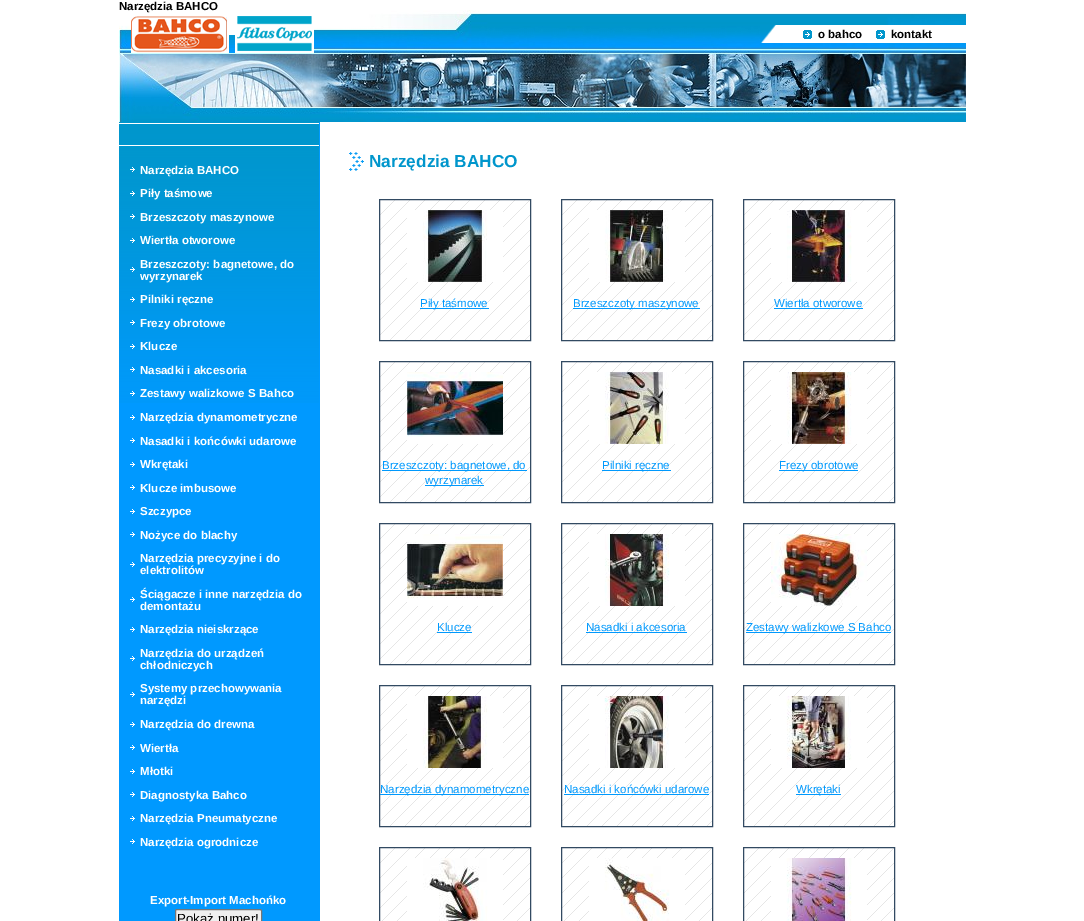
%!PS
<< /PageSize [1084 921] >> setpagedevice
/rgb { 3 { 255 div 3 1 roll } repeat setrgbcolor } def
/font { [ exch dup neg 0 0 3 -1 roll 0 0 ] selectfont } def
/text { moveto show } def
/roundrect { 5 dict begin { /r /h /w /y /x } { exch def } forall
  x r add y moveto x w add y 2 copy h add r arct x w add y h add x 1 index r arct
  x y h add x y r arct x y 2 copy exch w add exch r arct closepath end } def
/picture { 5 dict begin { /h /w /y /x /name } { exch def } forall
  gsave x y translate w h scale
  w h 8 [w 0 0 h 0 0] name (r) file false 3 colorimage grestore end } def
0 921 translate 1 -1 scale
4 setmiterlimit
255 255 255 rgb
0 0 1084 921 rectfill
0 153 255 rgb
119 122 201 799 rectfill
(img_01.rgb) 119 10 847 112 picture
(img_02.rgb) 131 15 183 38 picture
255 255 255 rgb
762 25 204 18 rectfill
(img_03.rgb) 760 25 16 18 picture
(img_04.rgb) 803 30 9 9 picture
(img_04.rgb) 876 30 9 9 picture
(img_05.rgb) 119 122 200 281 picture
(img_06.rgb) 130 167 5 5 picture
(img_07.rgb) 130 191 5 5 picture
(img_08.rgb) 130 214 5 5 picture
(img_09.rgb) 130 238 5 5 picture
(img_10.rgb) 130 267 5 5 picture
(img_11.rgb) 130 297 5 5 picture
(img_12.rgb) 130 320 5 5 picture
(img_13.rgb) 130 344 5 5 picture
(img_14.rgb) 130 367 5 5 picture
(img_15.rgb) 130 391 5 5 picture
(img_16.rgb) 130 415 5 5 picture
(img_16.rgb) 130 438 5 5 picture
(img_16.rgb) 130 462 5 5 picture
(img_16.rgb) 130 485 5 5 picture
(img_16.rgb) 130 509 5 5 picture
(img_16.rgb) 130 532 5 5 picture
(img_16.rgb) 130 562 5 5 picture
(img_16.rgb) 130 597 5 5 picture
(img_16.rgb) 130 627 5 5 picture
(img_16.rgb) 130 656 5 5 picture
(img_16.rgb) 130 692 5 5 picture
(img_16.rgb) 130 722 5 5 picture
(img_16.rgb) 130 745 5 5 picture
(img_16.rgb) 130 769 5 5 picture
(img_16.rgb) 130 792 5 5 picture
(img_16.rgb) 130 816 5 5 picture
(img_16.rgb) 130 839 5 5 picture
239 239 239 rgb
175.5 909.5 86 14 1.5 roundrect gsave fill grestore
118 118 118 rgb
stroke
(img_17.rgb) 349 152 15 19 picture
(img_18.rgb) 380 200 150 140 picture
50 74 98 rgb
379.5 199.5 151 141 rectstroke
(img_19.rgb) 407 210 96 72 picture
0 153 253 rgb
420 308 69 1 rectfill
(img_18.rgb) 562 200 150 140 picture
50 74 98 rgb
561.5 199.5 151 141 rectstroke
(img_20.rgb) 589 210 96 72 picture
0 153 253 rgb
573 308 127 1 rectfill
(img_18.rgb) 744 200 150 140 picture
50 74 98 rgb
743.5 199.5 151 141 rectstroke
(img_21.rgb) 771 210 96 72 picture
0 153 253 rgb
774 308 89 1 rectfill
(img_18.rgb) 380 362 150 140 picture
50 74 98 rgb
379.5 361.5 151 141 rectstroke
(img_22.rgb) 407 372 96 72 picture
0 153 253 rgb
382 470 145 1 rectfill
425 485 59 1 rectfill
(img_18.rgb) 562 362 150 140 picture
50 74 98 rgb
561.5 361.5 151 141 rectstroke
(img_23.rgb) 589 372 96 72 picture
0 153 253 rgb
602 470 69 1 rectfill
(img_18.rgb) 744 362 150 140 picture
50 74 98 rgb
743.5 361.5 151 141 rectstroke
(img_24.rgb) 771 372 96 72 picture
0 153 253 rgb
779 470 79 1 rectfill
(img_18.rgb) 380 524 150 140 picture
50 74 98 rgb
379.5 523.5 151 141 rectstroke
(img_25.rgb) 407 534 96 72 picture
0 153 253 rgb
437 632 35 1 rectfill
(img_18.rgb) 562 524 150 140 picture
50 74 98 rgb
561.5 523.5 151 141 rectstroke
(img_26.rgb) 589 534 96 72 picture
0 153 253 rgb
586 632 101 1 rectfill
(img_18.rgb) 744 524 150 140 picture
50 74 98 rgb
743.5 523.5 151 141 rectstroke
(img_27.rgb) 771 534 96 72 picture
0 153 253 rgb
746 632 145 1 rectfill
(img_18.rgb) 380 686 150 140 picture
50 74 98 rgb
379.5 685.5 151 141 rectstroke
(img_28.rgb) 407 696 96 72 picture
0 153 253 rgb
380 794 149 1 rectfill
(img_18.rgb) 562 686 150 140 picture
50 74 98 rgb
561.5 685.5 151 141 rectstroke
(img_29.rgb) 589 696 96 72 picture
0 153 253 rgb
564 794 145 1 rectfill
(img_18.rgb) 744 686 150 140 picture
50 74 98 rgb
743.5 685.5 151 141 rectstroke
(img_30.rgb) 771 696 96 72 picture
0 153 253 rgb
796 794 45 1 rectfill
(img_31.rgb) 380 848 150 73 picture
50 74 98 rgb
379.5 847.5 151 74 rectstroke
(img_32.rgb) 407 858 96 63 picture
(img_31.rgb) 562 848 150 73 picture
561.5 847.5 151 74 rectstroke
(img_33.rgb) 589 858 96 63 picture
(img_31.rgb) 744 848 150 73 picture
743.5 847.5 151 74 rectstroke
(img_34.rgb) 771 858 96 63 picture
/LiberationSans-Bold 11.5 font
0 0 0 rgb
(Narzędzia BAHCO) 119 10 text
(o bahco) 818 38 text
(kontakt) 891 38 text
255 255 255 rgb
(Narzędzia BAHCO) 140 174 text
(Piły taśmowe) 140 197 text
(Brzeszczoty maszynowe) 140 221 text
(Wiertła otworowe) 140 244 text
(Brzeszczoty: bagnetowe, do) 140 268 text
(wyrzynarek) 140 280 text
(Pilniki ręczne) 140 303 text
(Frezy obrotowe) 140 327 text
(Klucze) 140 350 text
(Nasadki i akcesoria) 140 374 text
(Zestawy walizkowe S Bahco) 140 397 text
(Narzędzia dynamometryczne) 140 421 text
(Nasadki i końcówki udarowe) 140 445 text
(Wkrętaki) 140 468 text
(Klucze imbusowe) 140 492 text
(Szczypce) 140 515 text
(Nożyce do blachy) 140 539 text
(Narzędzia precyzyjne i do) 140 562 text
(elektrolitów) 140 574 text
(Ściągacze i inne narzędzia do) 140 598 text
(demontażu) 140 610 text
(Narzędzia nieiskrzące) 140 633 text
(Narzędzia do urządzeń) 140 657 text
(chłodniczych) 140 669 text
(Systemy przechowywania) 140 692 text
(narzędzi) 140 704 text
(Narzędzia do drewna) 140 728 text
(Wiertła) 140 752 text
(Młotki) 140 775 text
(Diagnostyka Bahco) 140 799 text
(Narzędzia Pneumatyczne) 140 822 text
(Narzędzia ogrodnicze) 140 846 text
(Export-Import Machońko) 150 904 text
/LiberationSans-Regular 13.25 font
0 0 0 rgb
(Pokaż numer!) 177 923 text
/LiberationSans-Bold 17.25 font
0 150 204 rgb
(Narzędzia BAHCO) 369 167 text
/LiberationSans-Regular 11.5 font
0 153 253 rgb
(Piły taśmowe) 420 307 text
(Brzeszczoty maszynowe) 573 307 text
(Wiertła otworowe) 774 307 text
(Brzeszczoty: bagnetowe, do) 382 469 text
(wyrzynarek) 425 484 text
(Pilniki ręczne) 602 469 text
(Frezy obrotowe) 779 469 text
(Klucze) 437 631 text
(Nasadki i akcesoria) 586 631 text
(Zestawy walizkowe S Bahco) 746 631 text
(Narzędzia dynamometryczne) 380 793 text
(Nasadki i końcówki udarowe) 564 793 text
(Wkrętaki) 796 793 text
showpage
